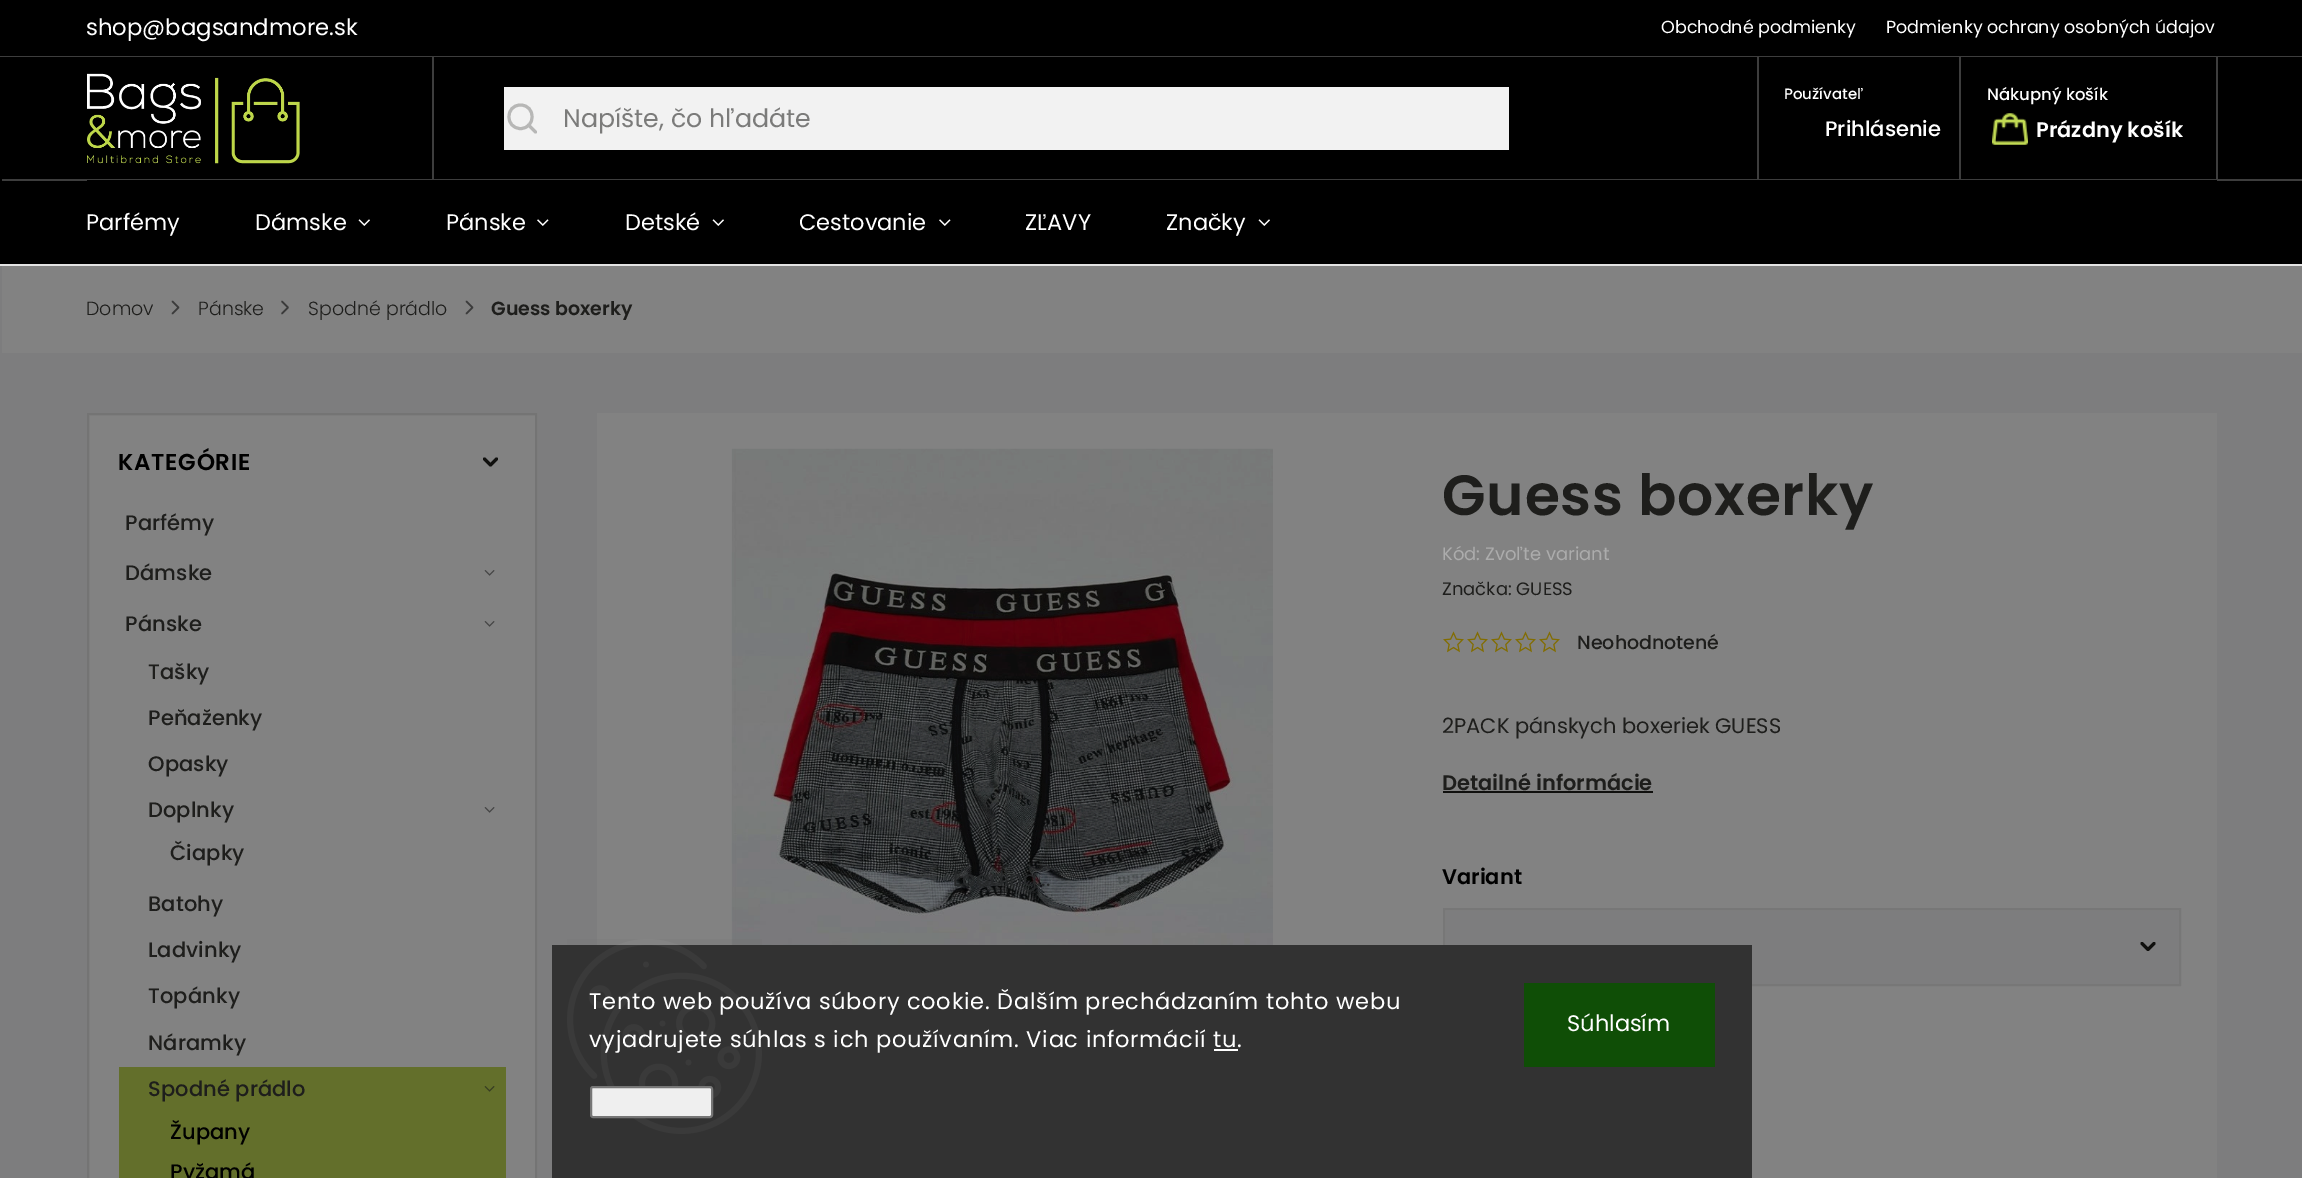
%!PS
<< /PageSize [2302 1178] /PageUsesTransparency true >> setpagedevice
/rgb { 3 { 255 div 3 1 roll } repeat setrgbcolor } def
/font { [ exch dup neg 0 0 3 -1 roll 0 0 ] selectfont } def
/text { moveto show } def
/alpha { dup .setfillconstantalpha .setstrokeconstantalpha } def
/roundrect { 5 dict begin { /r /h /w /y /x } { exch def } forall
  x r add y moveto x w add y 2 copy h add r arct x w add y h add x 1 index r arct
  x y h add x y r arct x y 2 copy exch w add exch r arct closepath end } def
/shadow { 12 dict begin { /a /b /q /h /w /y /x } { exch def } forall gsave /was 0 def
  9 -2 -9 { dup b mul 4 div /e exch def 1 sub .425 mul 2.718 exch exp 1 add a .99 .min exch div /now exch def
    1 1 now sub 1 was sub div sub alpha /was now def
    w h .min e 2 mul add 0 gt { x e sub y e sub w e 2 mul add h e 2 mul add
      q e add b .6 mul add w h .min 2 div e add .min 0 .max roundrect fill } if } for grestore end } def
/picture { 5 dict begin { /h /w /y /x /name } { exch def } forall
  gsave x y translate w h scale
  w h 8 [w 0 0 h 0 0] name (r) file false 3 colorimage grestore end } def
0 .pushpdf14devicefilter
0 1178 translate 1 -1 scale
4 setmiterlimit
247 247 249 rgb
0 0 2302 1178 rectfill
255 255 255 rgb
2 266 2300 87 rectfill
116 116 116 rgb
1.5 setlinewidth
1 setlinecap
1 setlinejoin
172.5 313.5 moveto 6 -6 rlineto -6 -6 rlineto stroke
282 313.5 moveto 6 -6 rlineto -6 -6 rlineto stroke
466.5 313.5 moveto 6 -6 rlineto -6 -6 rlineto stroke
255 255 255 rgb
88 414 moveto 448 0 rlineto 0 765 rlineto -448 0 rlineto closepath gsave fill grestore
228 228 228 rgb
2 setlinewidth
0 setlinecap
0 setlinejoin
stroke
30 30 28 rgb
3 setlinewidth
1 setlinecap
1 setlinejoin
484.5 459 moveto 6 6 rlineto 6 -6 rlineto stroke
(img_05.rgb) 484 570 11 6 picture
(img_05.rgb) 484 621 11 6 picture
(img_05.rgb) 484 807 11 6 picture
194 219 84 rgb
119 1067 387 111 rectfill
(img_06.rgb) 484 1086 11 6 picture
255 255 255 rgb
597 413 1620 765 rectfill
(img_07.rgb) 731 448 542 497 picture
(img_08.rgb) 1443 631 21 22 picture
(img_08.rgb) 1467 631 21 22 picture
(img_08.rgb) 1491 631 21 22 picture
(img_08.rgb) 1515 631 21 22 picture
(img_08.rgb) 1539 631 21 22 picture
30 30 28 rgb
1443 791 210 2 rectfill
247 247 249 rgb
1445 910 734 74 rectfill
30 30 28 rgb
2142 943.5 moveto 6 6 rlineto 6 -6 rlineto stroke
237 237 237 rgb
2 setlinewidth
0 setlinecap
0 setlinejoin
1444 909 736 76 rectstroke
0 0 0 rgb
-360 -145 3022 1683 0 120 0.5 shadow
0 0 2302 56 rectfill
61 61 61 rgb
0 56 2302 1 rectfill
0 0 0 rgb
0 57 2302 207 rectfill
228 228 228 rgb
0 264 2302 2 rectfill
(img_01.rgb) 87 73 213 91 picture
61 61 61 rgb
432 57 2 122 rectfill
242 242 242 rgb
504 87 1005 63 rectfill
183 183 182 rgb
3 setlinewidth
1 setlinecap
1 setlinejoin
520.5 128.5 moveto 15.5 0 15.5 -23.5 0 -23.5 rcurveto -15.5 0 -15.5 23.5 0 23.5 rcurveto closepath 528.5 125 moveto 7 7 rlineto stroke
61 61 61 rgb
1757 57 2 122 rectfill
2216 57 2 122 rectfill
1959 57 2 122 rectfill
(img_02.rgb) 1992 113 36 32 picture
2 179 2300 2 rectfill
0 0 0 rgb
87 180 2130 1 rectfill
(img_03.rgb) 358 219 12 7 picture
(img_04.rgb) 537 219 12 7 picture
(img_03.rgb) 712 219 12 7 picture
(img_04.rgb) 939 219 12 7 picture
(img_03.rgb) 1258 219 12 7 picture
50 50 50 rgb
552 945 1200 233 rectfill
(img_09.rgb) 567 939 195 195 picture
255 255 255 rgb
1214 1049 24 2 rectfill
239 239 239 rgb
591 1087 121 30 2 roundrect gsave fill grestore
118 118 118 rgb
2 setlinewidth
0 setlinecap
0 setlinejoin
stroke
15 78 6 rgb
1524 983 191 84 rectfill
/Poppins-Regular 22.75 font
255 255 255 rgb
(shop@bagsandmore.sk) 86 35 text
/Poppins-Regular 17.5 font
(Obchodné podmienky) 1661 33 text
(Podmienky ochrany osobných údajov) 1886 33 text
/Poppins-Regular 25.25 font
123 123 122 rgb
(Napíšte, čo hľadáte) 563 127 text
/Poppins-Medium 15 font
255 255 255 rgb
(Používateľ) 1784 99 text
/Poppins-Medium 21 font
(Prihlásenie) 1825 136 text
/Poppins-Medium 16.5 font
(Nákupný košík) 1987 100 text
/Poppins-SemiBold 21 font
(Prázdny košík) 2036 137 text
/Poppins-Regular 22.5 font
(Parfémy) 86 230 text
(Dámske) 255 230 text
(Pánske) 446 230 text
(Detské) 625 230 text
(Cestovanie) 799 230 text
(ZĽAVY) 1025 230 text
(Značky) 1166 230 text
/Poppins-Light 19 font
30 30 28 rgb
(Domov) 86 315 text
(Pánske) 198 315 text
(Spodné prádlo) 308 315 text
/Poppins-SemiBold 19 font
(Guess boxerky) 491 315 text
/Poppins-SemiBold 23 font
0 0 0 rgb
118 470 moveto 0.75 0 (KATEGÓRIE) ashow
/Poppins-Medium 21 font
30 30 28 rgb
125 530 moveto 0.1 0 (Parfémy) ashow
125 580 moveto 0.1 0 (Dámske) ashow
125 631 moveto 0.1 0 (Pánske) ashow
148 679 moveto 0.1 0 (Tašky) ashow
148 725 moveto 0.1 0 (Peňaženky) ashow
148 771 moveto 0.1 0 (Opasky) ashow
148 817 moveto 0.1 0 (Doplnky) ashow
170 860 moveto 0.1 0 (Čiapky) ashow
148 911 moveto 0.1 0 (Batohy) ashow
148 957 moveto 0.1 0 (Ladvinky) ashow
148 1003 moveto 0.1 0 (Topánky) ashow
148 1050 moveto 0.1 0 (Náramky) ashow
148 1096 moveto 0.1 0 (Spodné prádlo) ashow
0 0 0 rgb
170 1139 moveto 0.1 0 (Župany) ashow
170 1179 moveto 0.1 0 (Pyžamá) ashow
/Poppins-Regular 21 font
39 41 42 rgb
(Loading...) 953 886 text
/Poppins-SemiBold 56.75 font
30 30 28 rgb
1442 515 moveto 0.75 0 (Guess boxerky) ashow
/Poppins-Regular 18 font
172 172 172 rgb
(Kód: Zvoľte variant) 1442 560 text
30 30 28 rgb
(Značka: GUESS) 1442 595 text
/Poppins-Medium 19 font
(Neohodnotené) 1577 649 text
/Poppins-Regular 21 font
(2PACK pánskych boxeriek GUESS) 1442 733 text
/Poppins-SemiBold 21 font
(Detailné informácie) 1442 790 text
0 0 0 rgb
(Variant) 1442 884 text
/Poppins-Regular 22.5 font
255 255 255 rgb
589 1009 moveto 0.75 0 (Tento web používa súbory cookie. Ďalším prechádzaním tohto webu) ashow
589 1047 moveto 0.75 0 (vyjadrujete súhlas s ich používaním. Viac informácií tu.) ashow
(Súhlasím) 1567 1031 text
.poppdf14devicefilter showpage
